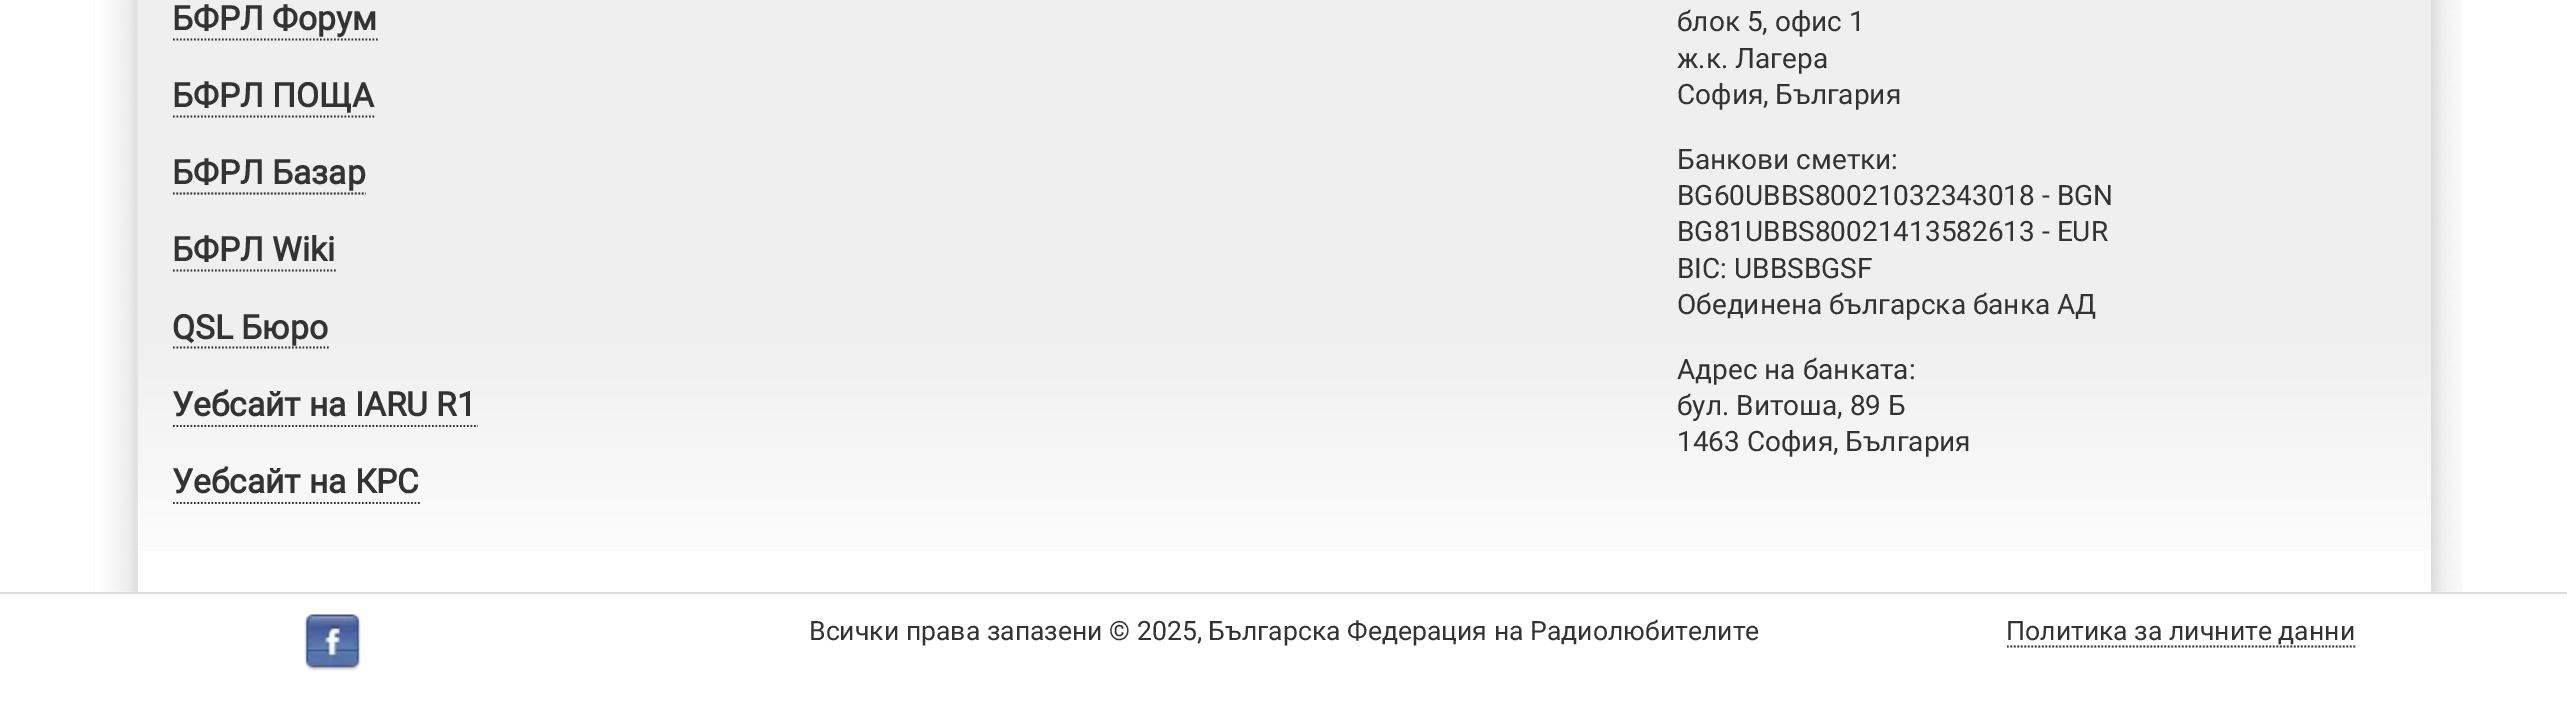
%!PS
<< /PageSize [2567 703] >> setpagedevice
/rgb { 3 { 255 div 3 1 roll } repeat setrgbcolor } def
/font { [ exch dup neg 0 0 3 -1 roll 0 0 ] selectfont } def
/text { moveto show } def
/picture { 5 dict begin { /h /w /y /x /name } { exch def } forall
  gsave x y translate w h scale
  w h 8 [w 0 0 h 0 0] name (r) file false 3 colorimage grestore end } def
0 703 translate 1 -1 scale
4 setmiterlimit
255 255 255 rgb
0 0 2567 703 rectfill
221 221 221 rgb
0 592 2567 2 rectfill
(img_01.rgb) 94 0 44 592 picture
(img_02.rgb) 2431 0 32 592 picture
gsave 138 0 moveto 2293 0 rlineto 0 551 rlineto -2293 0 rlineto closepath clip newpath
<< /ShadingType 2 /ColorSpace /DeviceRGB /Coords [1285 592 1285 -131] /Extend [true true] /Function << /FunctionType 3 /Domain [0 1] /Functions [<< /FunctionType 2 /Domain [0 1] /C0 [1 1 1] /C1 [0.937 0.937 0.937] /N 1 >> << /FunctionType 2 /Domain [0 1] /C0 [0.937 0.937 0.937] /C1 [0.937 0.937 0.937] /N 1 >>] /Bounds [0.36] /Encode [0 1 0 1] >> >> shfill grestore
51 51 51 rgb
1.8 setlinewidth
[1.75 1.75] 0 setdash
173 39.5 moveto 205 0 rlineto stroke
173 116.5 moveto 201.5 0 rlineto stroke
173 193.5 moveto 193 0 rlineto stroke
173 270.5 moveto 163 0 rlineto stroke
173 347.5 moveto 156 0 rlineto stroke
173 426 moveto 305 0 rlineto stroke
173 503 moveto 247 0 rlineto stroke
(img_03.rgb) 304 614 57 57 picture
2007 646.5 moveto 348.5 0 rlineto stroke
/Roboto-Bold 33.5 font
(БФРЛ Форум) 172 30 text
(БФРЛ ПОЩА) 172 107 text
(БФРЛ Базар) 172 184 text
(БФРЛ Wiki) 172 261 text
(QSL Бюро) 172 339 text
(Уебсайт на IARU R1) 172 416 text
(Уебсайт на КРС) 172 493 text
/Roboto-Regular 28 font
(блок 5, офис 1) 1677 31 text
(ж.к. Лагера) 1677 68 text
(София, България) 1677 104 text
(Банкови сметки:) 1677 169 text
(BG60UBBS80021032343018 - BGN) 1677 205 text
(BG81UBBS80021413582613 - EUR) 1677 241 text
(BIC: UBBSBGSF) 1677 278 text
(Обединена българска банка АД) 1677 314 text
(Адрес на банката:) 1677 379 text
(бул. Витоша, 89 Б) 1677 415 text
(1463 София, България) 1677 451 text
/Roboto-Regular 26.6 font
(Всички права запазени © 2025, Българска Федерация на Радиолюбителите) 809 640 text
(Политика за личните данни) 2006 640 text
showpage
